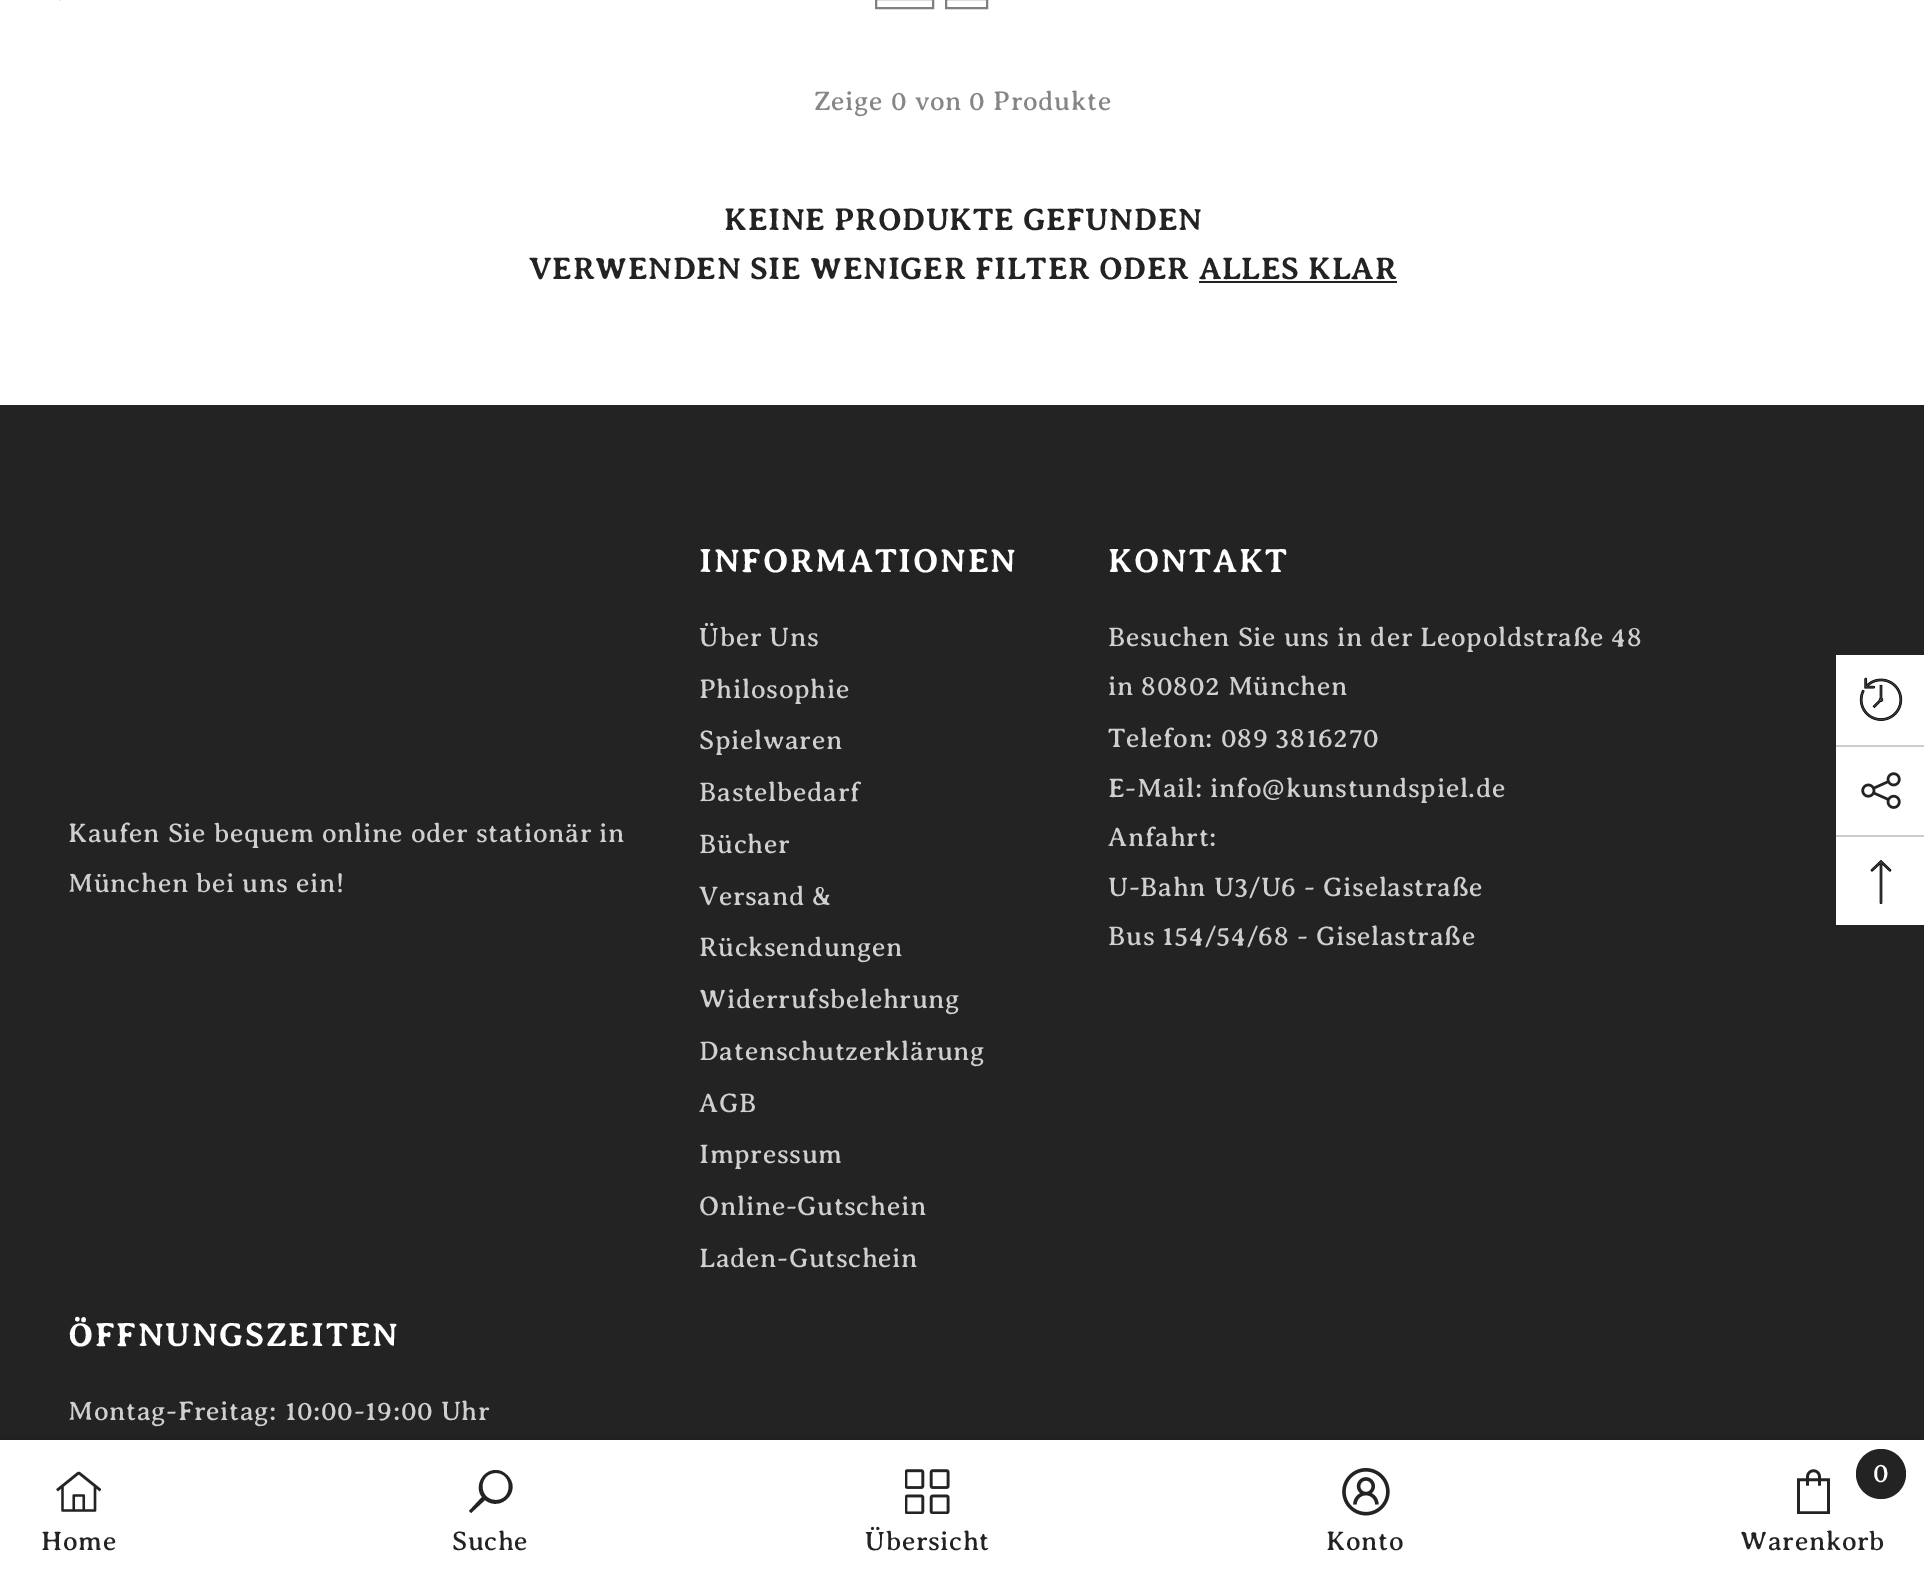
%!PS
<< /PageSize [1924 1579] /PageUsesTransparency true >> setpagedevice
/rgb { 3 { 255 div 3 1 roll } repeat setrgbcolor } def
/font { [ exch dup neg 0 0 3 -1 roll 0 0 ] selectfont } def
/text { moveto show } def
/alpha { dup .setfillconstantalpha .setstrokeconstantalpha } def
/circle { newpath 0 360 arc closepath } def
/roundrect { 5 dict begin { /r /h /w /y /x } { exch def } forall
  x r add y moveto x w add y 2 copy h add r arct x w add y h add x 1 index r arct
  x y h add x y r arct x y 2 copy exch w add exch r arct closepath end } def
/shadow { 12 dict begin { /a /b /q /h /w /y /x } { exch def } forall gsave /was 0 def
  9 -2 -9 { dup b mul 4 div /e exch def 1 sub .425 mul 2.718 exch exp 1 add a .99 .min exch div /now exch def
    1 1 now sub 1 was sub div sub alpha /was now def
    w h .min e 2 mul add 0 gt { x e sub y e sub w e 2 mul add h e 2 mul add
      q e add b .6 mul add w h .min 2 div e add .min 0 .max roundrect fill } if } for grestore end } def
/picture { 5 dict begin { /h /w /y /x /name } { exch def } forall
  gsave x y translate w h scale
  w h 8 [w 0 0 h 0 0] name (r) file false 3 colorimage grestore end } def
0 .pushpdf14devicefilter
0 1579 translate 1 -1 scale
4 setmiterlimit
255 255 255 rgb
0 0 1924 1579 rectfill
(img_01.rgb) 59 0 2 1 picture
128 128 128 rgb
2 setlinewidth
876 -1 57 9 rectstroke
946 -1 41 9 rectstroke
35 35 35 rgb
1199 281 198 2 rectfill
0 405 1924 1035 rectfill
0 0 0 rgb
0 1440 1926 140 0 10 0.12 shadow
255 255 255 rgb
0 1440 1924 139 rectfill
(img_02.rgb) 56 1471 45 41 picture
35 35 35 rgb
496 1470 moveto -14 0 -22 17 -14 27 rcurveto -13 14 rlineto 2 2 rlineto 14 -13 rlineto 16 13 38 -10 22 -25 rcurveto -3 -3 -7 -5 -11 -5 rcurveto closepath 496 1473 moveto 17 0 17 27 0 27 rcurveto -18 0 -18 -27 0 -27 rcurveto closepath fill
(img_03.rgb) 905 1469 45 45 picture
(img_04.rgb) 1342 1468 48 48 picture
(img_05.rgb) 1797 1469 33 45 picture
1881 1474 25 circle fill
255 255 255 rgb
1836 655 88 270 rectfill
(img_06.rgb) 1859 677 44 44 picture
204 204 204 rgb
1836 745 88 2 rectfill
(img_07.rgb) 1861 772 40 37 picture
1836 835 88 2 rectfill
(img_08.rgb) 1870 860 22 44 picture
/AveriaSerifLibre-Regular 27 font
134 134 134 rgb
814 110 moveto 0.55 0 (Zeige 0 von 0 Produkte) ashow
/AveriaSerifLibre-Bold 31.5 font
35 35 35 rgb
724 230 moveto 0.65 0 (KEINE PRODUKTE GEFUNDEN) ashow
529 279 moveto 0.65 0 (VERWENDEN SIE WENIGER FILTER ODER ALLES KLAR) ashow
/AveriaSerifLibre-Regular 27 font
207 207 207 rgb
68 842 moveto 0.55 0 (Kaufen Sie bequem online oder stationär in) ashow
68 892 moveto 0.55 0 (München bei uns ein!) ashow
/AveriaSerifLibre-Bold 33.75 font
255 255 255 rgb
699 572 moveto 1.75 0 (INFORMATIONEN) ashow
/AveriaSerifLibre-Regular 27 font
207 207 207 rgb
699 646 moveto 0.55 0 (Über Uns) ashow
699 698 moveto 0.55 0 (Philosophie) ashow
699 749 moveto 0.55 0 (Spielwaren) ashow
699 801 moveto 0.55 0 (Bastelbedarf) ashow
699 853 moveto 0.55 0 (Bücher) ashow
699 905 moveto 0.55 0 (Versand &) ashow
699 956 moveto 0.55 0 (Rücksendungen) ashow
699 1008 moveto 0.55 0 (Widerrufsbelehrung) ashow
699 1060 moveto 0.55 0 (Datenschutzerklärung) ashow
699 1112 moveto 0.55 0 (AGB) ashow
699 1163 moveto 0.55 0 (Impressum) ashow
699 1215 moveto 0.55 0 (Online-Gutschein) ashow
699 1267 moveto 0.55 0 (Laden-Gutschein) ashow
/AveriaSerifLibre-Bold 33.75 font
255 255 255 rgb
1108 572 moveto 1.75 0 (KONTAKT) ashow
/AveriaSerifLibre-Regular 27 font
207 207 207 rgb
1108 646 moveto 0.55 0 (Besuchen Sie uns in der Leopoldstraße 48) ashow
1108 695 moveto 0.55 0 (in 80802 München) ashow
1108 747 moveto 0.55 0 (Telefon: 089 3816270) ashow
1108 797 moveto 0.55 0 (E-Mail: info@kunstundspiel.de) ashow
1108 846 moveto 0.55 0 (Anfahrt:) ashow
1108 896 moveto 0.55 0 (U-Bahn U3/U6 - Giselastraße) ashow
1108 945 moveto 0.55 0 (Bus 154/54/68 - Giselastraße) ashow
/AveriaSerifLibre-Bold 33.75 font
255 255 255 rgb
68 1346 moveto 1.75 0 (ÖFFNUNGSZEITEN) ashow
/AveriaSerifLibre-Regular 27 font
207 207 207 rgb
68 1420 moveto 0.55 0 (Montag-Freitag: 10:00-19:00 Uhr) ashow
35 35 35 rgb
41 1550 moveto 0.55 0 (Home) ashow
452 1550 moveto 0.55 0 (Suche) ashow
865 1550 moveto 0.55 0 (Übersicht) ashow
1326 1550 moveto 0.55 0 (Konto) ashow
255 255 255 rgb
(0) 1873 1482 text
35 35 35 rgb
1740 1550 moveto 0.55 0 (Warenkorb) ashow
.poppdf14devicefilter showpage
